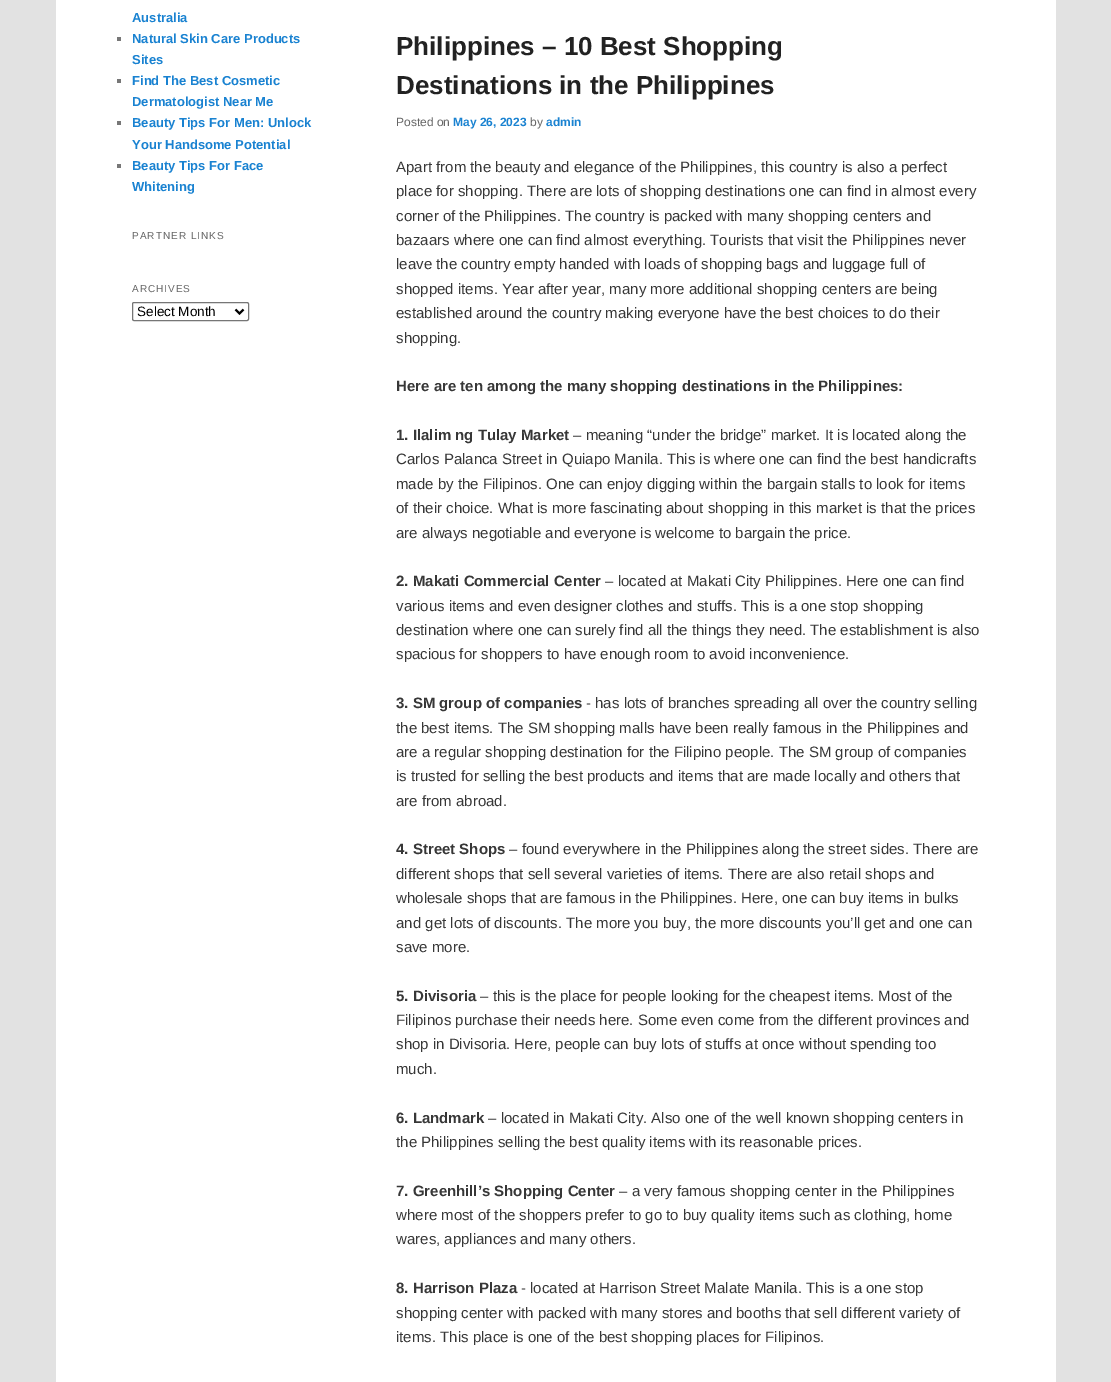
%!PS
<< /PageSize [1111 1382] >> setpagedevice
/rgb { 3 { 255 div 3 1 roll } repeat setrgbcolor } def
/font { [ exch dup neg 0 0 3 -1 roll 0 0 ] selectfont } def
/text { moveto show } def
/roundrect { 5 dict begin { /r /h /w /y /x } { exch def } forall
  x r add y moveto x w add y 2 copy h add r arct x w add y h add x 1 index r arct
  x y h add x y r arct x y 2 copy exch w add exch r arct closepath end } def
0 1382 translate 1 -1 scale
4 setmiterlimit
226 226 226 rgb
0 0 1111 1382 rectfill
255 255 255 rgb
56 0 1000 1382 rectfill
119 119 119 rgb
117 37 4 4 rectfill
117 79 4 4 rectfill
117 121 4 4 rectfill
117 164 4 4 rectfill
118 118 118 rgb
132.5 302.5 116 18 1.5 roundrect stroke
0 0 0 rgb
2 setlinewidth
235.5 309.5 moveto 4 4 rlineto 4 -4 rlineto stroke
/LiberationSans-Bold 13 font
25 130 209 rgb
(Australia) 132 22 text
(Natural Skin Care Products) 132 43 text
(Sites) 132 64 text
(Find The Best Cosmetic) 132 85 text
(Dermatologist Near Me) 132 106 text
(Beauty Tips For Men: Unlock) 132 127 text
(Your Handsome Potential) 132 149 text
(Beauty Tips For Face) 132 170 text
(Whitening) 132 191 text
/LiberationSans-Regular 10 font
102 102 102 rgb
132 239 moveto 1 0 (PARTNER LINKS) ashow
132 292 moveto 1 0 (ARCHIVES) ashow
/LiberationSans-Regular 13.5 font
0 0 0 rgb
(Select Month) 137 316 text
/LiberationSans-Bold 26 font
34 34 34 rgb
(Philippines – 10 Best Shopping) 396 55 text
(Destinations in the Philippines) 396 94 text
/LiberationSans-Regular 12 font
102 102 102 rgb
(Posted on) 396 126 text
/LiberationSans-Bold 12 font
25 130 209 rgb
(May 26, 2023) 453 126 text
/LiberationSans-Regular 12 font
102 102 102 rgb
(by) 530 126 text
/LiberationSans-Bold 12 font
25 130 209 rgb
(admin) 546 126 text
/LiberationSans-Regular 15 font
55 55 55 rgb
(Apart from the beauty and elegance of the Philippines, this country is also a perfect) 396 172 text
(place for shopping. There are lots of shopping destinations one can find in almost every) 396 196 text
(corner of the Philippines. The country is packed with many shopping centers and) 396 221 text
(bazaars where one can find almost everything. Tourists that visit the Philippines never) 396 245 text
(leave the country empty handed with loads of shopping bags and luggage full of) 396 269 text
(shopped items. Year after year, many more additional shopping centers are being) 396 294 text
(established around the country making everyone have the best choices to do their) 396 318 text
(shopping.) 396 343 text
/LiberationSans-Bold 15 font
(Here are ten among the many shopping destinations in the Philippines:) 396 391 text
(1. Ilalim ng Tulay Market) 396 440 text
/LiberationSans-Regular 15 font
(– meaning “under the bridge” market. It is located along the) 573 440 text
(Carlos Palanca Street in Quiapo Manila. This is where one can find the best handicrafts) 396 464 text
(made by the Filipinos. One can enjoy digging within the bargain stalls to look for items) 396 489 text
(of their choice. What is more fascinating about shopping in this market is that the prices) 396 513 text
(are always negotiable and everyone is welcome to bargain the price.) 396 538 text
/LiberationSans-Bold 15 font
(2. Makati Commercial Center) 396 586 text
/LiberationSans-Regular 15 font
(– located at Makati City Philippines. Here one can find) 605 586 text
(various items and even designer clothes and stuffs. This is a one stop shopping) 396 611 text
(destination where one can surely find all the things they need. The establishment is also) 396 635 text
(spacious for shoppers to have enough room to avoid inconvenience.) 396 659 text
/LiberationSans-Bold 15 font
(3. SM group of companies) 396 708 text
/LiberationSans-Regular 15 font
(- has lots of branches spreading all over the country selling) 586 708 text
(the best items. The SM shopping malls have been really famous in the Philippines and) 396 733 text
(are a regular shopping destination for the Filipino people. The SM group of companies) 396 757 text
(is trusted for selling the best products and items that are made locally and others that) 396 781 text
(are from abroad.) 396 806 text
/LiberationSans-Bold 15 font
(4. Street Shops) 396 854 text
/LiberationSans-Regular 15 font
(– found everywhere in the Philippines along the street sides. There are) 509 854 text
(different shops that sell several varieties of items. There are also retail shops and) 396 879 text
(wholesale shops that are famous in the Philippines. Here, one can buy items in bulks) 396 903 text
(and get lots of discounts. The more you buy, the more discounts you’ll get and one can) 396 928 text
(save more.) 396 952 text
/LiberationSans-Bold 15 font
(5. Divisoria) 396 1001 text
/LiberationSans-Regular 15 font
(– this is the place for people looking for the cheapest items. Most of the) 480 1001 text
(Filipinos purchase their needs here. Some even come from the different provinces and) 396 1025 text
(shop in Divisoria. Here, people can buy lots of stuffs at once without spending too) 396 1049 text
(much.) 396 1074 text
/LiberationSans-Bold 15 font
(6. Landmark) 396 1123 text
/LiberationSans-Regular 15 font
(– located in Makati City. Also one of the well known shopping centers in) 488 1123 text
(the Philippines selling the best quality items with its reasonable prices.) 396 1147 text
/LiberationSans-Bold 15 font
(7. Greenhill’s Shopping Center) 396 1196 text
/LiberationSans-Regular 15 font
(– a very famous shopping center in the Philippines) 619 1196 text
(where most of the shoppers prefer to go to buy quality items such as clothing, home) 396 1220 text
(wares, appliances and many others.) 396 1244 text
/LiberationSans-Bold 15 font
(8. Harrison Plaza) 396 1293 text
/LiberationSans-Regular 15 font
(- located at Harrison Street Malate Manila. This is a one stop) 521 1293 text
(shopping center with packed with many stores and booths that sell different variety of) 396 1318 text
(items. This place is one of the best shopping places for Filipinos.) 396 1342 text
showpage
